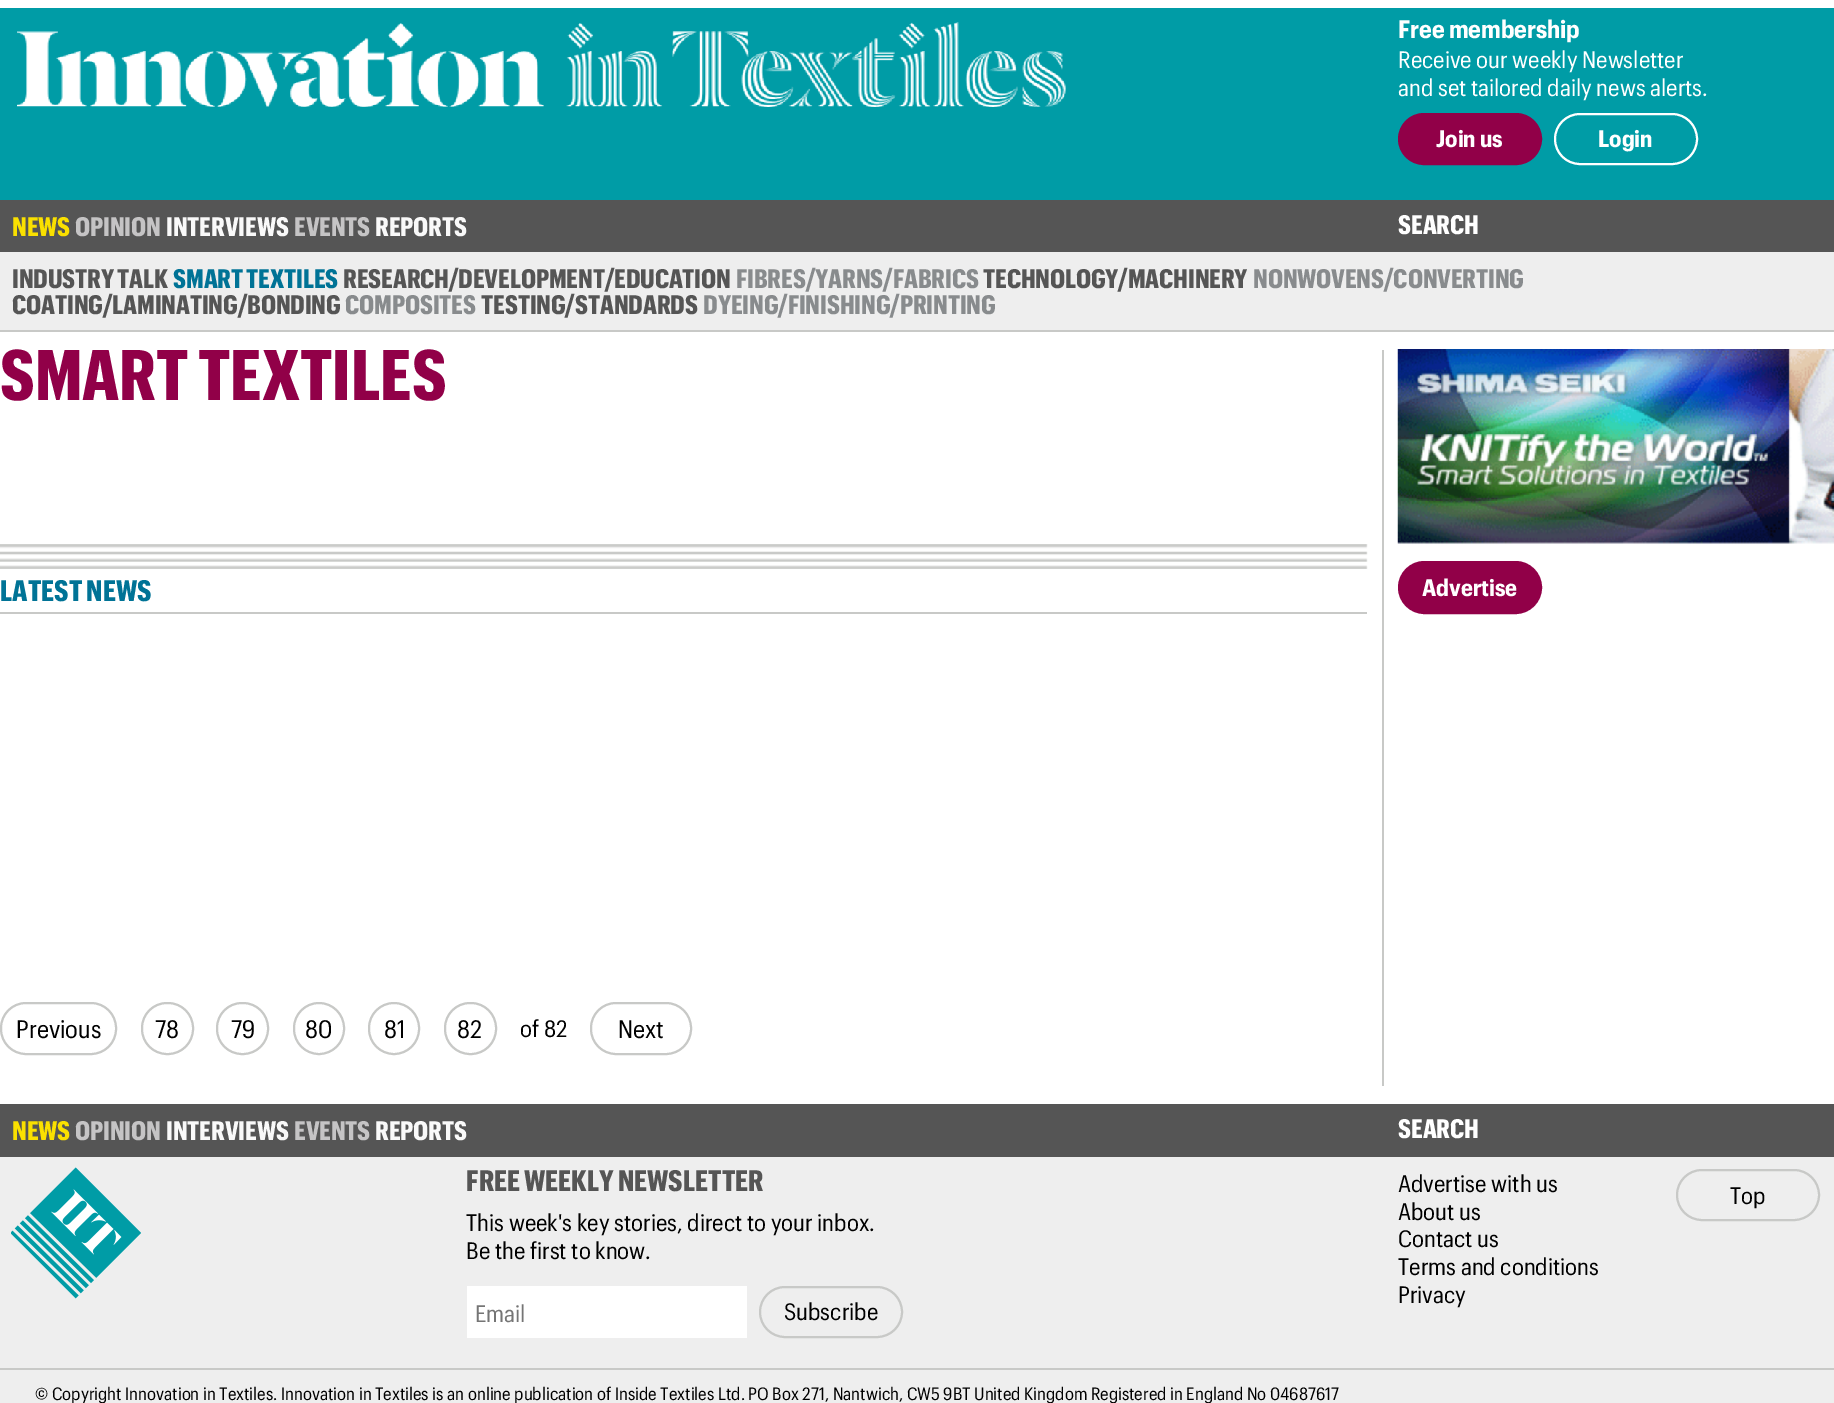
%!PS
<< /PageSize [1834 1403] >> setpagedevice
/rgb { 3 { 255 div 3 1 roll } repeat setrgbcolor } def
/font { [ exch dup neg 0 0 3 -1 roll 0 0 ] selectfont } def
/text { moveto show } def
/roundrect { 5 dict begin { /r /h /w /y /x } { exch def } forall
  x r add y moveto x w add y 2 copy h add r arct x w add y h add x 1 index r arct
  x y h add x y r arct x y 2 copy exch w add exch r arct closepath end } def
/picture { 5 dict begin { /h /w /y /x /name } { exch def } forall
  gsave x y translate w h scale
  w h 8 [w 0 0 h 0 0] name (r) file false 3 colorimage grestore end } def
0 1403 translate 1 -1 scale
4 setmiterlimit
255 255 255 rgb
0 0 1834 1403 rectfill
0 156 166 rgb
0 8 1834 192 rectfill
(img_01.rgb) 17 22 1049 85 picture
145 0 72 rgb
1399 114 142 50 25 roundrect gsave fill grestore
2 setlinewidth
stroke
255 255 255 rgb
1555 114 142 50 25 roundrect stroke
85 85 85 rgb
0 200 1834 52 rectfill
200 201 199 rgb
0 330 1834 2 rectfill
238 238 238 rgb
0 252 1834 78 rectfill
200 201 199 rgb
1382 350 2 736 rectfill
(img_02.rgb) 0 544 1368 25 picture
0 612 1367 2 rectfill
1 1003 115 51 25 roundrect stroke
142 1003 51 51 25 roundrect stroke
217 1003 51 51 25 roundrect stroke
294 1003 50 51 25 roundrect stroke
369 1003 50 51 25 roundrect stroke
445 1003 51 51 25 roundrect stroke
591 1003 100 51 25 roundrect stroke
(img_03.rgb) 1397 349 437 195 picture
145 0 72 rgb
1399 562 142 51 25.5 roundrect gsave fill grestore
stroke
238 238 238 rgb
0 1157 1834 246 rectfill
85 85 85 rgb
0 1104 1834 53 rectfill
(img_04.rgb) 11 1167 130 132 picture
255 255 255 rgb
467 1286 280 52 rectfill
200 201 199 rgb
760 1287 142 50 25 roundrect stroke
1677 1170 142 50 25 roundrect stroke
0 1368 1834 2 rectfill
/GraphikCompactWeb-Bold 24.75 font
255 255 255 rgb
(Free membership) 1398 38 text
/GraphikCompactWeb-Regular 23.25 font
(Receive our weekly Newsletter) 1398 68 text
(and set tailored daily news alerts.) 1398 96 text
/GraphikCompactWeb-Bold 23.25 font
(Join us) 1436 147 text
(Login) 1598 147 text
/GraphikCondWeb-Bold 26.25 font
1398 234 moveto -0.15 0 (SEARCH) ashow
250 224 0 rgb
12 236 moveto -0.15 0 (NEWS) ashow
85 85 85 rgb
12 288 moveto -0.15 0 (INDUSTRY TALK) ashow
0 115 150 rgb
173 288 moveto -0.15 0 (SMART TEXTILES) ashow
85 85 85 rgb
343 288 moveto -0.15 0 (RESEARCH/DEVELOPMENT/EDUCATION) ashow
136 139 141 rgb
736 288 moveto -0.15 0 (FIBRES/YARNS/FABRICS) ashow
85 85 85 rgb
983 288 moveto -0.15 0 (TECHNOLOGY/MACHINERY) ashow
136 139 141 rgb
1253 288 moveto -0.15 0 (NONWOVENS/CONVERTING) ashow
85 85 85 rgb
12 314 moveto -0.15 0 (COATING/LAMINATING/BONDING) ashow
136 139 141 rgb
345 314 moveto -0.15 0 (COMPOSITES) ashow
85 85 85 rgb
481 314 moveto -0.15 0 (TESTING/STANDARDS) ashow
136 139 141 rgb
703 314 moveto -0.15 0 (DYEING/FINISHING/PRINTING) ashow
197 196 197 rgb
75 236 moveto -0.15 0 (OPINION) ashow
249 249 249 rgb
166 236 moveto -0.15 0 (INTERVIEWS) ashow
197 196 197 rgb
294 236 moveto -0.15 0 (EVENTS) ashow
249 249 249 rgb
375 236 moveto -0.15 0 (REPORTS) ashow
/GraphikCondWeb-Bold 70 font
145 0 72 rgb
(SMART TEXTILES) 0 400 text
/GraphikCondWeb-Bold 29.1 font
0 115 150 rgb
(LATEST NEWS) 0 601 text
/GraphikCompactWeb-Regular 24.75 font
0 0 0 rgb
(Previous) 16 1038 text
(78) 155 1038 text
(79) 231 1038 text
(80) 305 1038 text
(81) 384 1038 text
(82) 457 1038 text
/GraphikCompactWeb-Regular 23.25 font
(of 82) 520 1037 text
/GraphikCompactWeb-Regular 24.75 font
(Next) 618 1038 text
/GraphikCompactWeb-Bold 23.25 font
255 255 255 rgb
(Advertise) 1422 596 text
/GraphikCondWeb-Bold 26.25 font
250 224 0 rgb
12 1140 moveto -0.15 0 (NEWS) ashow
197 196 197 rgb
75 1140 moveto -0.15 0 (OPINION) ashow
249 249 249 rgb
166 1140 moveto -0.15 0 (INTERVIEWS) ashow
197 196 197 rgb
294 1140 moveto -0.15 0 (EVENTS) ashow
249 249 249 rgb
375 1140 moveto -0.15 0 (REPORTS) ashow
255 255 255 rgb
1398 1138 moveto -0.15 0 (SEARCH) ashow
/GraphikCondWeb-Bold 29.1 font
85 85 85 rgb
(FREE WEEKLY NEWSLETTER) 466 1191 text
/GraphikCompactWeb-Regular 23.25 font
0 0 0 rgb
(This week's key stories, direct to your inbox.) 466 1231 text
(Be the first to know.) 466 1259 text
117 117 117 rgb
(Email) 475 1322 text
0 0 0 rgb
(Subscribe) 784 1320 text
(Advertise with us) 1398 1192 text
(About us) 1398 1220 text
(Contact us) 1398 1247 text
(Terms and conditions) 1398 1275 text
(Privacy) 1398 1303 text
(Top) 1730 1204 text
/GraphikCompactWeb-Regular 17.47 font
(© Copyright Innovation in Textiles. Innovation in Textiles is an online publication of Inside Textiles Ltd. PO Box 271, Nantwich, CW5 9BT United Kingdom Registered in England No 04687617) 35 1400 text
showpage
